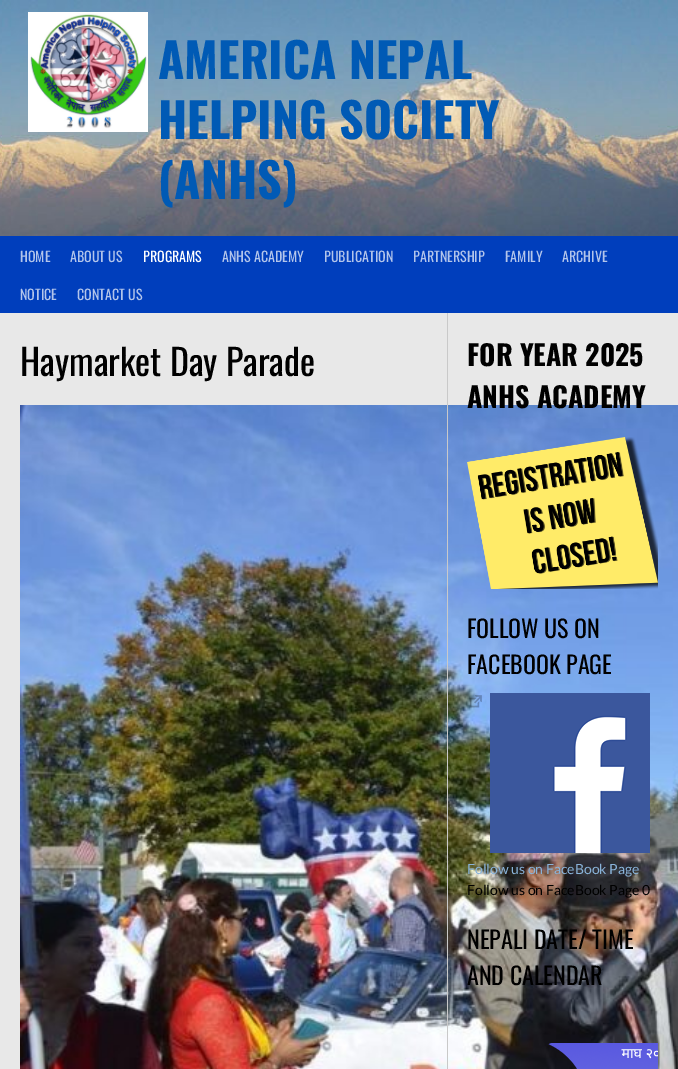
%!PS
<< /PageSize [678 1069] >> setpagedevice
/rgb { 3 { 255 div 3 1 roll } repeat setrgbcolor } def
/font { [ exch dup neg 0 0 3 -1 roll 0 0 ] selectfont } def
/text { moveto show } def
/picture { 5 dict begin { /h /w /y /x /name } { exch def } forall
  gsave x y translate w h scale
  w h 8 [w 0 0 h 0 0] name (r) file false 3 colorimage grestore end } def
0 1069 translate 1 -1 scale
4 setmiterlimit
255 255 255 rgb
0 0 678 1069 rectfill
(img_01.rgb) 0 0 678 236 picture
(img_02.rgb) 28 12 120 120 picture
0 62 188 rgb
0 236 678 77 rectfill
232 232 232 rgb
0 313 678 756 rectfill
(img_03.rgb) 20 405 658 664 picture
201 201 201 rgb
447 313 1 756 rectfill
(img_04.rgb) 467 437 191 152 picture
(img_05.rgb) 469 695 13 13 picture
(img_06.rgb) 490 693 160 160 picture
(img_07.rgb) 548 1043 110 26 picture
/Oswald-Bold 48 font
0 90 181 rgb
(AMERICA NEPAL) 158 79 text
(HELPING SOCIETY) 158 139 text
(\(ANHS\)) 158 199 text
/Oswald-Regular 14 font
179 197 235 rgb
(HOME) 20 262 text
(ABOUT US) 70 262 text
255 255 255 rgb
(PROGRAMS) 143 262 text
179 197 235 rgb
(ANHS ACADEMY) 222 262 text
(PUBLICATION) 324 262 text
(PARTNERSHIP) 413 262 text
(FAMILY) 505 262 text
(ARCHIVE) 562 262 text
(NOTICE) 20 300 text
(CONTACT US) 77 300 text
/Oswald-Regular 36 font
0 0 0 rgb
(Haymarket Day Parade) 20 376 text
/Oswald-Bold 28 font
(FOR YEAR 2025) 467 366 text
(ANHS ACADEMY) 467 408 text
/Oswald-Regular 24 font
(FOLLOW US ON) 467 638 text
(FACEBOOK PAGE) 467 674 text
/Lato-Regular 14 font
137 179 217 rgb
(Follow us on FaceBook Page) 467 874 text
0 0 0 rgb
(Follow us on FaceBook Page 0) 467 895 text
/Oswald-Regular 24 font
(NEPALI DATE/ TIME) 467 949 text
(AND CALENDAR) 467 985 text
showpage
